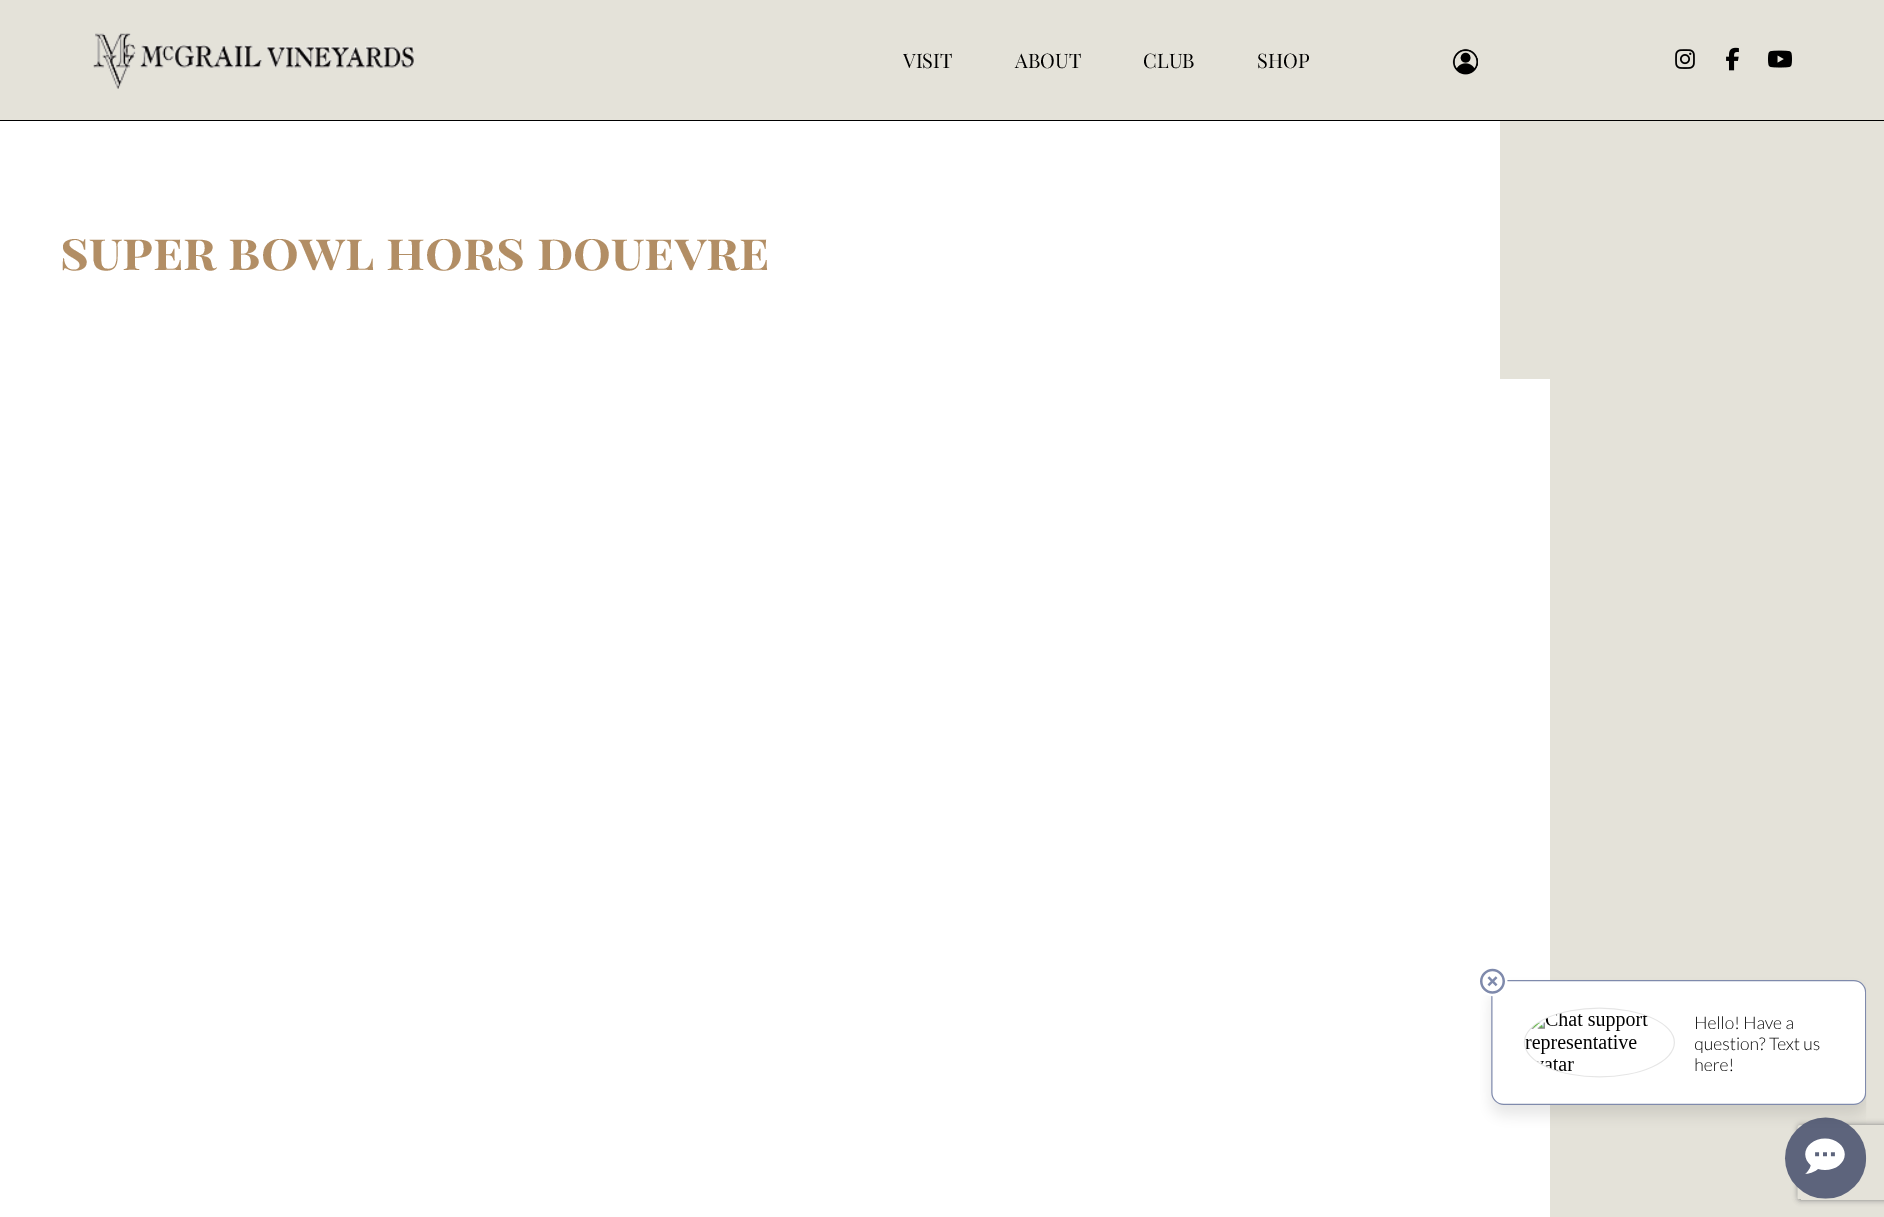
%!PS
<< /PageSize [1884 1217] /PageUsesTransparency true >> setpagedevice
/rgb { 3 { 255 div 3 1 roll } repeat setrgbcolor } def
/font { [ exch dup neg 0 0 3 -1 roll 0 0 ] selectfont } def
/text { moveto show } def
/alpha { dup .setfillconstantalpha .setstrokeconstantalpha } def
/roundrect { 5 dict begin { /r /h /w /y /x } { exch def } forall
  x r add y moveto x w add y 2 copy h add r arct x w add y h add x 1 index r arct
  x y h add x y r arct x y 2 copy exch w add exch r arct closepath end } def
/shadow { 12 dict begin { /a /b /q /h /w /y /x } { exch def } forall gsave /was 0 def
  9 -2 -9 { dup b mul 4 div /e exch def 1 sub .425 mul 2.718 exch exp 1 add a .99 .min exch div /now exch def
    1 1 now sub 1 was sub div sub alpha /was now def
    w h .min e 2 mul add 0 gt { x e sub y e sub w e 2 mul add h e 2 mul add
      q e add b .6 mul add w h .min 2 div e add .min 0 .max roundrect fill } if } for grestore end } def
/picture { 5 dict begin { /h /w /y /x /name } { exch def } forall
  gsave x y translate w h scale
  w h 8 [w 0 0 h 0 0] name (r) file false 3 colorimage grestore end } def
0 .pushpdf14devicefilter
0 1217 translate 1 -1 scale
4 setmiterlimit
228 226 217 rgb
0 0 1884 1217 rectfill
0 0 0 rgb
0 120 1884 1 rectfill
(img_01.rgb) 93 33 321 56 picture
(img_02.rgb) 1452 48 26 27 picture
(img_03.rgb) 1675 49 20 20 picture
(img_04.rgb) 1726 47 13 24 picture
(img_05.rgb) 1768 50 24 18 picture
255 255 255 rgb
0 121 1500 258 rectfill
0 379 1550 838 rectfill
gsave
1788 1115 moveto 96 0 rlineto 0 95 rlineto -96 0 rlineto closepath 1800.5 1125 moveto 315 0 rlineto 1.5 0 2.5 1 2.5 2.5 rcurveto 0 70 rlineto 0 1.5 -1 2.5 -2.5 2.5 rcurveto -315 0 rlineto -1.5 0 -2.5 -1 -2.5 -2.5 rcurveto 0 -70 rlineto 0 -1.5 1 -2.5 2.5 -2.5 rcurveto closepath eoclip newpath
128 128 128 rgb
1798 1125 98 75 2.5 3 1 shadow
grestore
(img_06.rgb) 1480 968 387 231 picture
/PlayfairDisplay-Regular 20 font
0 0 0 rgb
(VISIT) 903 68 text
(ABOUT) 1015 68 text
(CLUB) 1143 68 text
(SHOP) 1257 68 text
/PlayfairDisplaySC-Bold 50 font
178 142 101 rgb
(super bowl hors douevre) 60 270 text
.poppdf14devicefilter showpage
